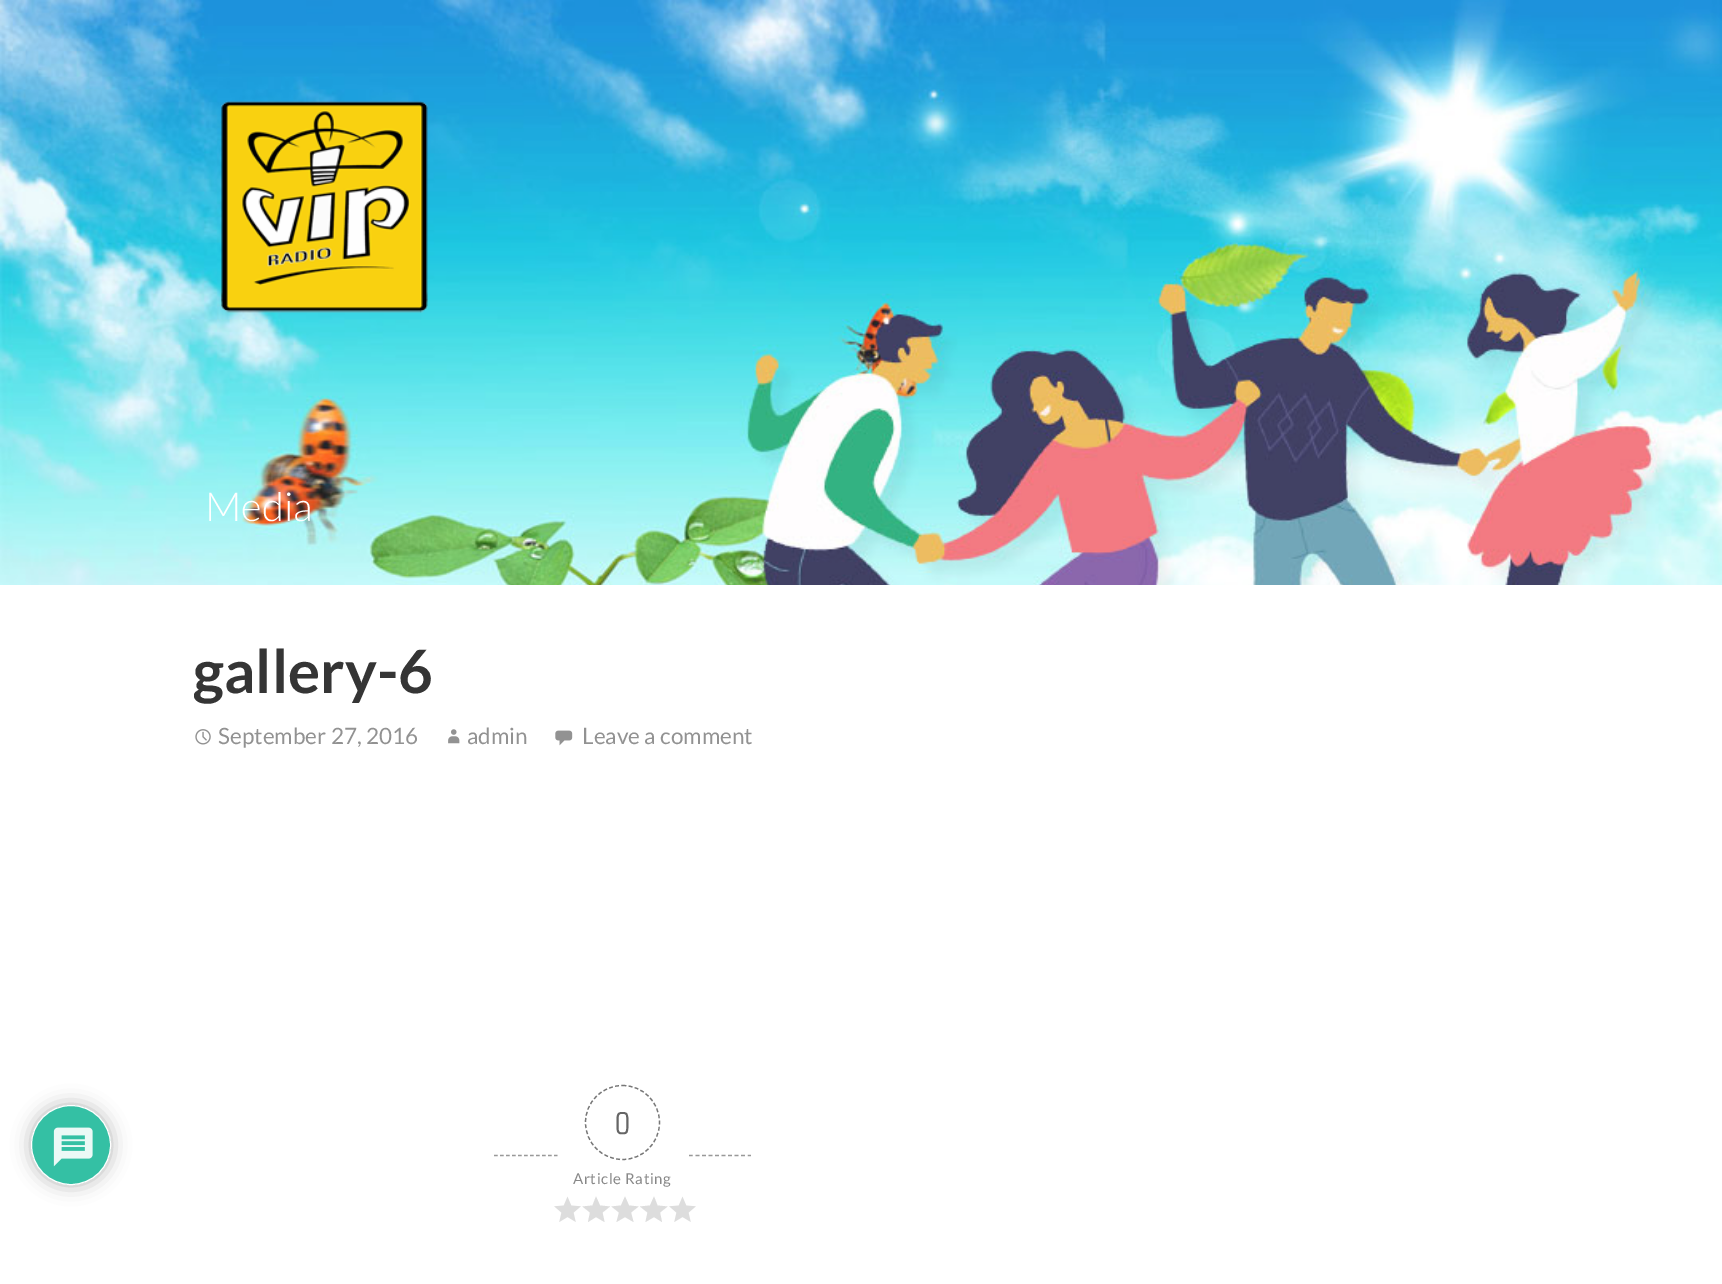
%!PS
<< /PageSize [1722 1284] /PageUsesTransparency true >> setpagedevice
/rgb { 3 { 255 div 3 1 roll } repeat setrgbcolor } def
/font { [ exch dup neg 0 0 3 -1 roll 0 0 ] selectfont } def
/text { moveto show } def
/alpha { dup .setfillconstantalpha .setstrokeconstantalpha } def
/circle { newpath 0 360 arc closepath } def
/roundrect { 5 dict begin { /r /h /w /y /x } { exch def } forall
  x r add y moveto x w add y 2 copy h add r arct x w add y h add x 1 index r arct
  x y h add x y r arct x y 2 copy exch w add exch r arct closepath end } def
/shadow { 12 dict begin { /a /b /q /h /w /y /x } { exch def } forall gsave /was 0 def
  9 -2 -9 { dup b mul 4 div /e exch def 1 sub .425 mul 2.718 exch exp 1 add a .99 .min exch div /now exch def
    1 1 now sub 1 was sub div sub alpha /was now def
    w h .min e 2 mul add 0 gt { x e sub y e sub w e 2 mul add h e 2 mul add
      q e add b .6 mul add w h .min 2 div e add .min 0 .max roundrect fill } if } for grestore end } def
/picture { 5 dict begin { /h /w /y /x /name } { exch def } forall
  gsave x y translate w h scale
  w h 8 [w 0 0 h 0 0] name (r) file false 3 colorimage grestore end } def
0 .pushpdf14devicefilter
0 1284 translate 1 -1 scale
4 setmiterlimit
255 255 255 rgb
0 0 1722 1284 rectfill
179 179 179 rgb
31 1105 80 80 40 9.5 1 shadow
52 192 164 rgb
71 1145 39.5 circle gsave fill grestore
255 255 255 rgb
stroke
(img_01.rgb) 53 1127 40 40 picture
(img_02.rgb) 0 0 1722 585 picture
(img_03.rgb) 221 101 207 212 picture
(img_04.rgb) 195 729 16 16 picture
(img_05.rgb) 448 729 12 15 picture
(img_06.rgb) 555 730 18 16 picture
153 153 153 rgb
1.2 setlinewidth
[3.75 2.25] 0 setdash
494 1155.5 moveto 63.5 0 rlineto stroke
119 119 119 rgb
[3.75 2.5] 0 setdash
622.5 1085.5 moveto 20.5 0 37 16.5 37 37 rcurveto 0 20.5 -16.5 37 -37 37 rcurveto -20.5 0 -37 -16.5 -37 -37 rcurveto 0 -20.5 16.5 -37 37 -37 rcurveto closepath stroke
(img_07.rgb) 554 1196 27 26 picture
221 221 221 rgb
596 1217 moveto 8.5 5 rlineto -2 -9.5 rlineto 7.5 -6 rlineto -10 -1 rlineto -4 -9 rlineto -3.5 9 rlineto -10 1 rlineto 7.5 6 rlineto -2 9.5 rlineto closepath 625 1217 moveto 8.5 5 rlineto -2.5 -9.5 rlineto 7.5 -6 rlineto -9.5 -1 rlineto -4 -9 rlineto -4 9 rlineto -9.5 1 rlineto 7.5 6 rlineto -2.5 9.5 rlineto closepath fill
654 1217 moveto 8 5 rlineto -2 -9.5 rlineto 7.5 -6 rlineto -10 -1 rlineto -3.5 -9 rlineto -4 9 rlineto -10 1 rlineto 7.5 6 rlineto -2 9.5 rlineto closepath fill
(img_07.rgb) 669 1196 27 26 picture
153 153 153 rgb
[3.75 2.78] 0 setdash
689 1155.5 moveto 62 0 rlineto stroke
/Lato-Light 40 font
255 255 255 rgb
(Media) 205 521 text
/Lato-Bold 60 font
53 53 53 rgb
(gallery-6) 193 693 text
/Lato-Regular 22.5 font
146 146 146 rgb
(September 27, 2016) 218 744 text
(admin) 467 744 text
(Leave a comment) 582 744 text
/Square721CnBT-Regular 30 font
102 102 102 rgb
(0) 615 1134 text
/Lato-Regular 15 font
136 136 136 rgb
573 1184 moveto 0.6 0 (Article Rating) ashow
.poppdf14devicefilter showpage
